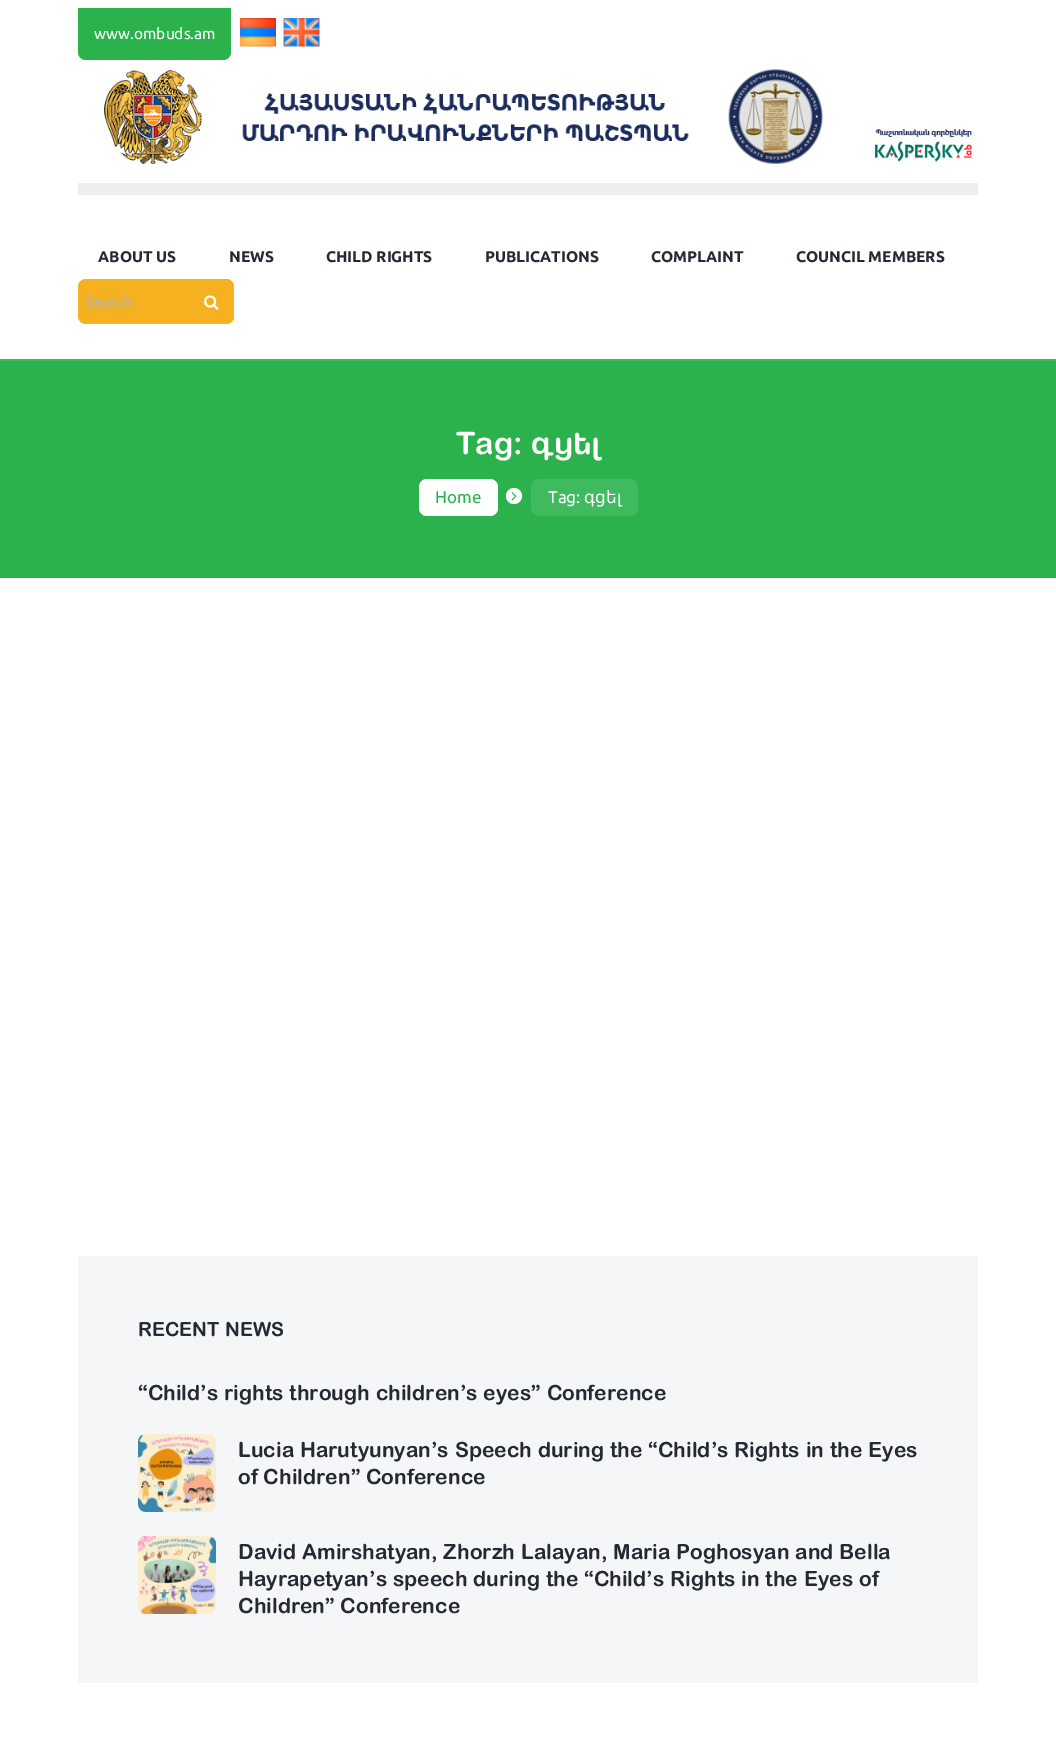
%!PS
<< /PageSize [1056 1740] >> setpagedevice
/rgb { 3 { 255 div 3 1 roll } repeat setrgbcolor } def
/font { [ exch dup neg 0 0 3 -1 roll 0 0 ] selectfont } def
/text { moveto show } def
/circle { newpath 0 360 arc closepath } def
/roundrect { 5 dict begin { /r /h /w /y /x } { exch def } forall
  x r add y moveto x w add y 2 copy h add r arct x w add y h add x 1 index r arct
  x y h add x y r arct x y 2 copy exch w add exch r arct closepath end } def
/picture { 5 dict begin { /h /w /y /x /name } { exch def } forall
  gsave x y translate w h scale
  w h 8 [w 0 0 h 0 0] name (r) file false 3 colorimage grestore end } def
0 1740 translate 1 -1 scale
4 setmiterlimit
255 255 255 rgb
0 0 1056 1740 rectfill
43 178 76 rgb
78 8 moveto 153 0 rlineto 0 44 rlineto 0 4.5 -3.5 8 -8 8 rcurveto -137 0 rlineto -4.5 0 -8 -3.5 -8 -8 rcurveto closepath fill
(img_01.rgb) 240 18 36 29 picture
(img_02.rgb) 283 18 37 29 picture
(img_03.rgb) 104 69 868 95 picture
236 238 239 rgb
78 183 900 12 rectfill
245 177 32 rgb
78 279 156 45 8 roundrect fill
189 279 45 45 8 roundrect fill
(img_04.rgb) 204 295 15 15 picture
43 178 76 rgb
0 361 1056 217 rectfill
60 184 93 rgb
0 359 1056 2 rectfill
255 255 255 rgb
419 479 79 37 8 roundrect fill
514 496 8 circle fill
(img_05.rgb) 511 492 6 9 picture
64 186 94 rgb
531 479 107 37 8 roundrect fill
245 246 247 rgb
78 1256 900 427 rectfill
(img_06.rgb) 138 1434 78 78 picture
(img_07.rgb) 138 1536 78 78 picture
/Ubuntu-Regular 15.5 font
255 255 255 rgb
(www.ombuds.am) 94 39 text
/Ubuntu-Bold 15.5 font
35 42 52 rgb
(ABOUT US) 98 262 text
(NEWS) 229 262 text
(CHILD RIGHTS) 326 262 text
(PUBLICATIONS) 485 262 text
(COMPLAINT) 651 262 text
(COUNCIL MEMBERS) 796 262 text
/Ubuntu-Regular 15.5 font
172 180 182 rgb
(Search) 86 307 text
/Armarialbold-Bold 31 font
255 255 255 rgb
(Tag: գցել) 456 454 text
/Ubuntu-Regular 17 font
43 178 76 rgb
(Home) 435 503 text
255 255 255 rgb
(Tag:) 548 503 text
/DejaVuSans-Regular 17 font
(գցել) 584 503 text
/Armarialbold-Bold 19.5 font
35 42 52 rgb
(RECENT NEWS) 138 1336 text
/Armarialbold-Bold 21 font
(“Child’s rights through children’s eyes” Conference) 138 1400 text
(Lucia Harutyunyan’s Speech during the “Child’s Rights in the Eyes) 238 1457 text
(of Children” Conference) 238 1484 text
(David Amirshatyan, Zhorzh Lalayan, Maria Poghosyan and Bella) 238 1559 text
(Hayrapetyan’s speech during the “Child’s Rights in the Eyes of) 238 1586 text
(Children” Conference) 238 1613 text
showpage
